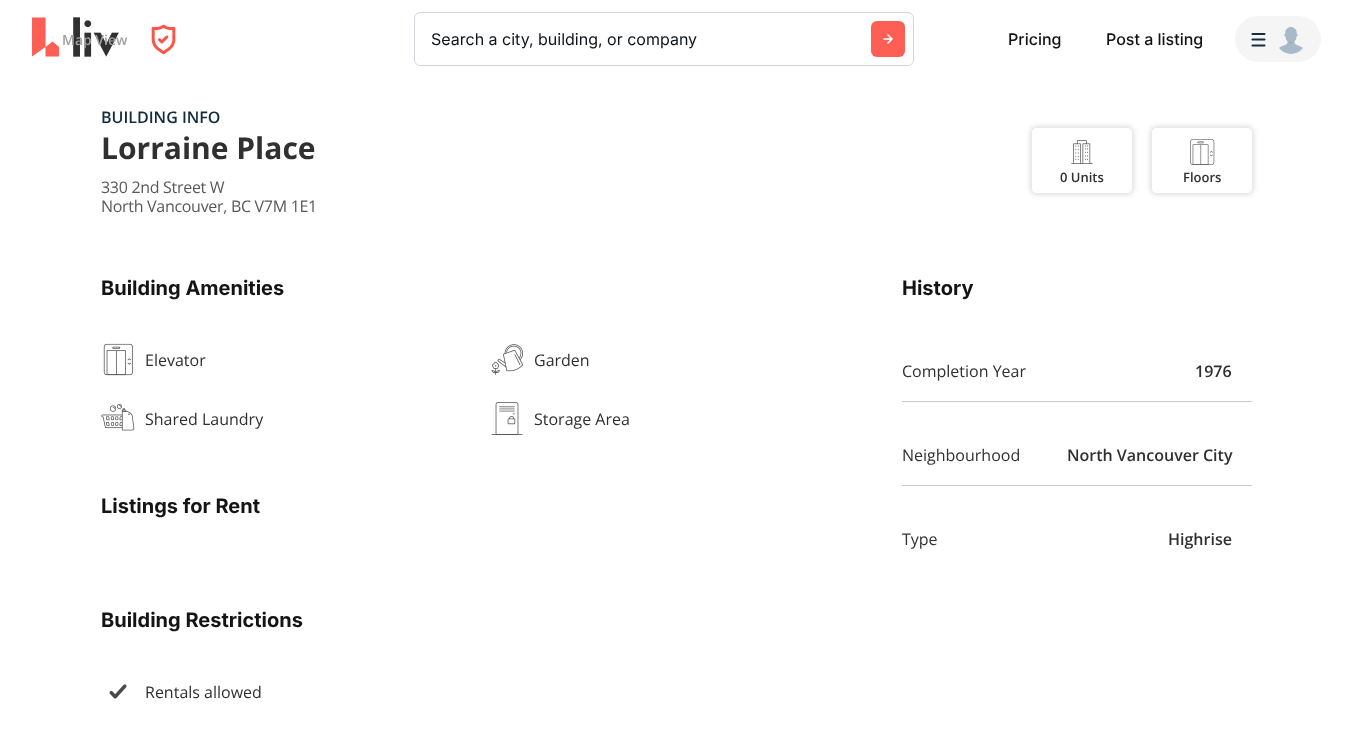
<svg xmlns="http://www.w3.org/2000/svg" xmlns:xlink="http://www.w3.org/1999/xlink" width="1353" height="745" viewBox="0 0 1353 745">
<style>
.cls-1{font:16px Inter;fill:#0e131b}
.cls-2{font:500 16px Inter;fill:#141414}
.cls-3{font:600 14px Open Sans;fill:#a1a1a1}
.cls-4{font:600 16px Open Sans;fill:#132b3e}
.cls-5{font:bold 30px Open Sans;fill:#303030}
.cls-6{font:16px Open Sans;letter-spacing:-0.3px;fill:#595959}
.cls-7{font:600 13px Open Sans;fill:#303030}
.cls-8{font:bold 20px Inter;fill:#141414}
.cls-9{font:16px Open Sans;fill:#303030}
.cls-10{font:600 16px Open Sans;fill:#303030}
</style>
<defs>
<clipPath id="clip1"><path d="M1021 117H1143V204H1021ZM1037 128H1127C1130 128 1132 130 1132 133V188C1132 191 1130 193 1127 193H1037C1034 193 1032 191 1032 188V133C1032 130 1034 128 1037 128Z" clip-rule="evenodd"/></clipPath>
<clipPath id="clip2"><path d="M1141 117H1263V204H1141ZM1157 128H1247C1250 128 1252 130 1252 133V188C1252 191 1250 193 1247 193H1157C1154 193 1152 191 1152 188V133C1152 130 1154 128 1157 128Z" clip-rule="evenodd"/></clipPath>
</defs>
<rect width="100%" height="100%" fill="#ffffff"/>
<path fill="#fe5f55" fill-rule="evenodd" d="M52.5 41.5L45.5 47V56.5H59V47ZM45.5 56.5V47L32 56.5V17.5H45.5Z"/>
<image xlink:href="image0.png" x="73" y="17" width="46" height="40"/>
<image xlink:href="image1.png" x="151" y="24" width="25" height="31"/>
<rect fill="none" stroke="#d2d7df" x="414.5" y="12.5" width="499" height="53" rx="5.5"/>
<rect fill="#fe5f55" x="871" y="21" width="34" height="36" rx="6"/>
<image xlink:href="image2.png" x="883" y="34" width="10" height="10"/>
<rect fill="#f5f5f5" x="1235" y="16" width="86" height="46" rx="23"/>
<path fill="none" stroke="#142d41" stroke-width="2.1" stroke-linecap="round" d="M1252.5 34H1264.5M1252.5 39.5H1264.5M1252.5 45.5H1264.5"/>
<image xlink:href="image3.png" x="1279" y="27" width="24" height="27"/>
<g clip-path="url(#clip1)">
<rect fill="#000000" fill-opacity="0.12" filter="blur(2.5px)" x="1030" y="126" width="104" height="69" rx="7"/>
</g>
<image xlink:href="image4.png" x="1071" y="140" width="22" height="24"/>
<g clip-path="url(#clip2)">
<rect fill="#000000" fill-opacity="0.12" filter="blur(2.5px)" x="1150" y="126" width="104" height="69" rx="7"/>
</g>
<image xlink:href="image5.png" x="1190" y="139" width="25" height="26"/>
<image xlink:href="image6.png" x="103" y="343" width="30" height="33"/>
<image xlink:href="image7.png" x="491" y="344" width="32" height="31"/>
<image xlink:href="image8.png" x="101" y="404" width="34" height="27"/>
<image xlink:href="image9.png" x="491" y="402" width="32" height="33"/>
<image xlink:href="image10.png" x="109" y="684" width="18" height="15"/>
<rect fill="#cbcbcb" x="902" y="401" width="350" height="1"/>
<rect fill="#cbcbcb" x="902" y="485" width="350" height="1"/>
<text class="cls-1" x="431" y="45">Search a city, building, or company</text>
<text class="cls-2" x="1008" y="45">Pricing</text>
<text class="cls-2" x="1106" y="45">Post a listing</text>
<text class="cls-3" x="62" y="45">Map View</text>
<text class="cls-4" x="101" y="123">BUILDING INFO</text>
<text class="cls-5" x="101" y="159">Lorraine Place</text>
<text class="cls-6"><tspan x="101" y="193">330 2nd Street W</tspan><tspan x="101" y="212">North Vancouver, BC V7M 1E1</tspan></text>
<text class="cls-7" x="1060" y="182">0 Units</text>
<text class="cls-7" x="1183" y="182">Floors</text>
<text class="cls-8" x="101" y="295">Building Amenities</text>
<text class="cls-9" x="145" y="366">Elevator</text>
<text class="cls-9" x="534" y="366">Garden</text>
<text class="cls-9" x="145" y="425">Shared Laundry</text>
<text class="cls-9" x="534" y="425">Storage Area</text>
<text class="cls-8" x="101" y="513">Listings for Rent</text>
<text class="cls-8" x="101" y="627">Building Restrictions</text>
<text class="cls-9" x="145" y="698">Rentals allowed</text>
<text class="cls-8" x="902" y="295">History</text>
<text class="cls-9" x="902" y="377">Completion Year</text>
<text class="cls-10" x="1195" y="377">1976</text>
<text class="cls-9" x="902" y="461">Neighbourhood</text>
<text class="cls-10" x="1067" y="461">North Vancouver City</text>
<text class="cls-9" x="902" y="545">Type</text>
<text class="cls-10" x="1168" y="545">Highrise</text>
</svg>
